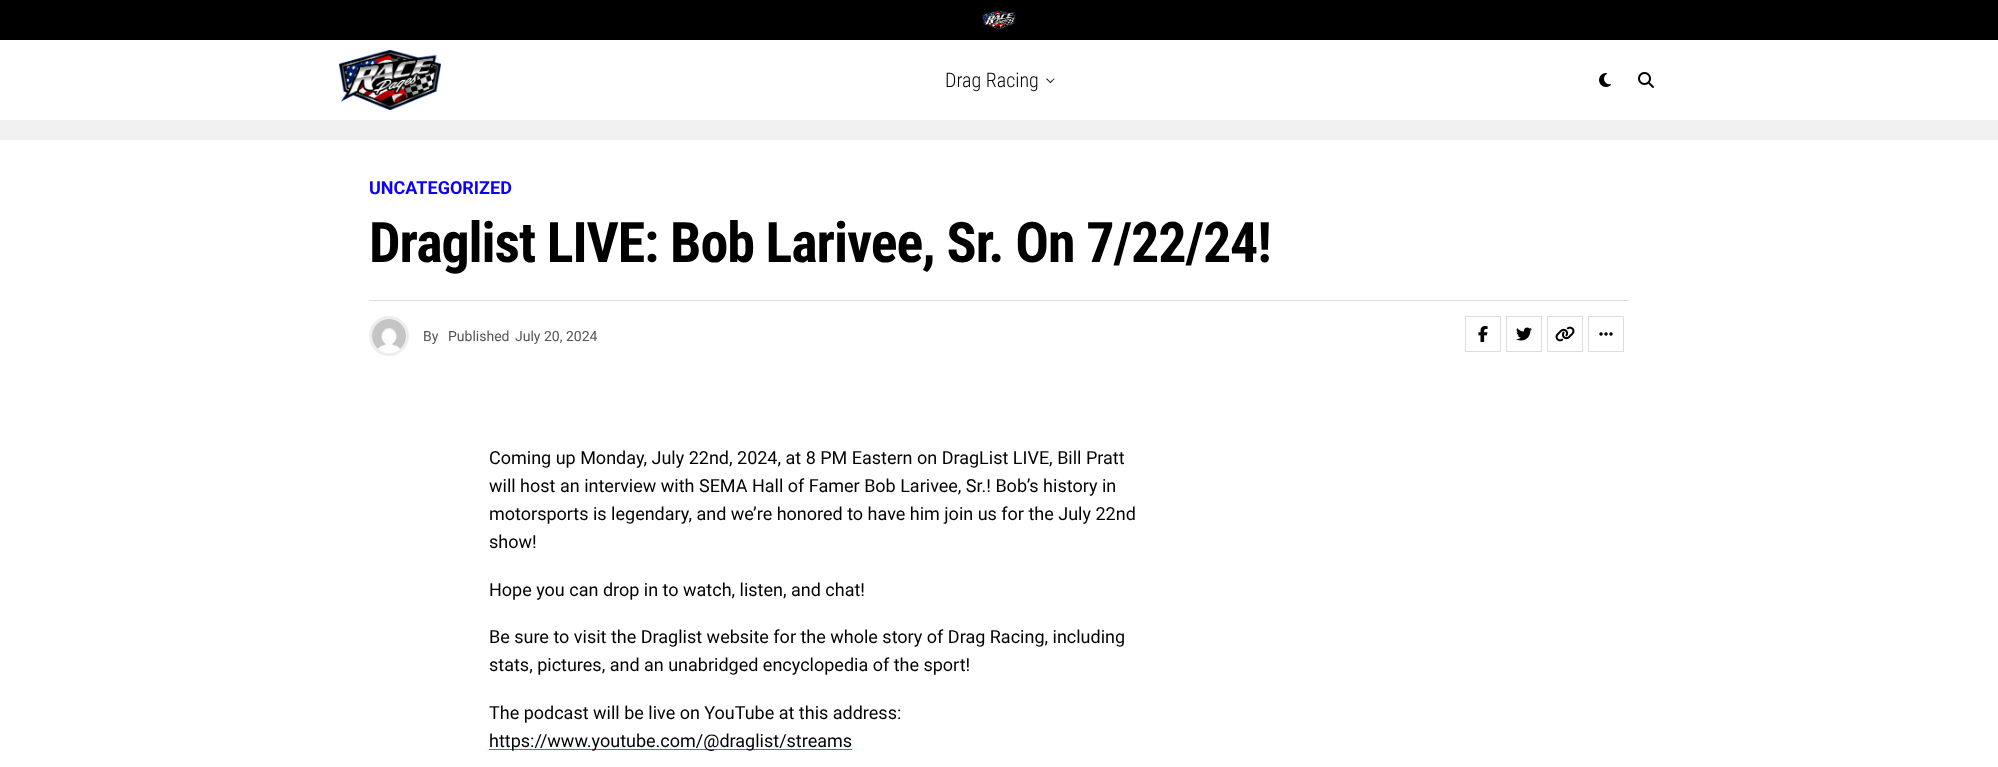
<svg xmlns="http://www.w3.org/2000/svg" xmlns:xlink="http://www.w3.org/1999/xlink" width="1998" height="767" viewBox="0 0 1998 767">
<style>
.cls-1{font:300 20px Roboto Condensed;fill:#000000}
.cls-2{font:bold 18px Roboto;fill:#0c00fc}
.cls-3{font:bold 56px Roboto Condensed;letter-spacing:-1.1px;fill:#000000}
.cls-4{font:14px Roboto;fill:#555555}
.cls-5{font:18px Roboto;fill:#000000}
</style>
<rect width="100%" height="100%" fill="#f0f0f0"/>
<rect fill="#000000" x="0" y="0" width="1998" height="40"/>
<image xlink:href="image0.png" x="982" y="10" width="34" height="20"/>
<rect fill="#ffffff" x="0" y="40" width="1998" height="80"/>
<image xlink:href="image1.png" x="339" y="50" width="102" height="60"/>
<path fill="#000000" d="M1054 78.5L1054.5 79L1050.5 83L1049.5 82.5Z"/>
<path fill="#000000" d="M1047 78.5L1051 82.5L1050.5 83L1046 79Z"/>
<image xlink:href="image2.png" x="1599" y="73" width="12" height="14"/>
<image xlink:href="image3.png" x="1638" y="72" width="16" height="16"/>
<rect fill="#ffffff" x="0" y="140" width="1998" height="627"/>
<rect fill="#dddddd" x="369" y="300" width="1260" height="1"/>
<circle fill="none" stroke="#eeeeee" stroke-width="3" cx="389" cy="336" r="18.5"/>
<image xlink:href="image4.png" x="372" y="319" width="34" height="34"/>
<rect fill="none" stroke="#dddddd" x="1465.5" y="316.5" width="35" height="35"/>
<image xlink:href="image5.png" x="1478" y="326" width="10" height="16"/>
<rect fill="none" stroke="#dddddd" x="1506.5" y="316.5" width="35" height="35"/>
<image xlink:href="image6.png" x="1516" y="327" width="16" height="14"/>
<rect fill="none" stroke="#dddddd" x="1547.5" y="316.5" width="35" height="35"/>
<image xlink:href="image7.png" x="1555" y="326" width="20" height="16"/>
<rect fill="none" stroke="#dddddd" x="1588.5" y="316.5" width="35" height="35"/>
<image xlink:href="image8.png" x="1599" y="332" width="14" height="4"/>
<rect fill="#ec2b8c" x="489" y="749" width="363" height="1"/>
<text class="cls-1" x="945" y="87">Drag Racing</text>
<text class="cls-2" x="369" y="194">UNCATEGORIZED</text>
<text class="cls-3" x="369" y="262">Draglist LIVE: Bob Larivee, Sr. On 7/22/24!</text>
<text class="cls-4" x="423" y="341">By</text>
<text class="cls-4" x="448" y="341">Published</text>
<text class="cls-4" x="515" y="341">July 20, 2024</text>
<text class="cls-5"><tspan x="489" y="464">Coming up Monday, July 22nd, 2024, at 8 PM Eastern on DragList LIVE, Bill Pratt</tspan><tspan x="489" y="492">will host an interview with SEMA Hall of Famer Bob Larivee, Sr.! Bob’s history in</tspan><tspan x="489" y="520">motorsports is legendary, and we’re honored to have him join us for the July 22nd</tspan><tspan x="489" y="548">show!</tspan></text>
<text class="cls-5" x="489" y="596">Hope you can drop in to watch, listen, and chat!</text>
<text class="cls-5"><tspan x="489" y="643">Be sure to visit the Draglist website for the whole story of Drag Racing, including</tspan><tspan x="489" y="671">stats, pictures, and an unabridged encyclopedia of the sport!</tspan></text>
<text class="cls-5"><tspan x="489" y="719">The podcast will be live on YouTube at this address:</tspan><tspan x="489" y="747">https://www.youtube.com/@draglist/streams</tspan></text>
</svg>
